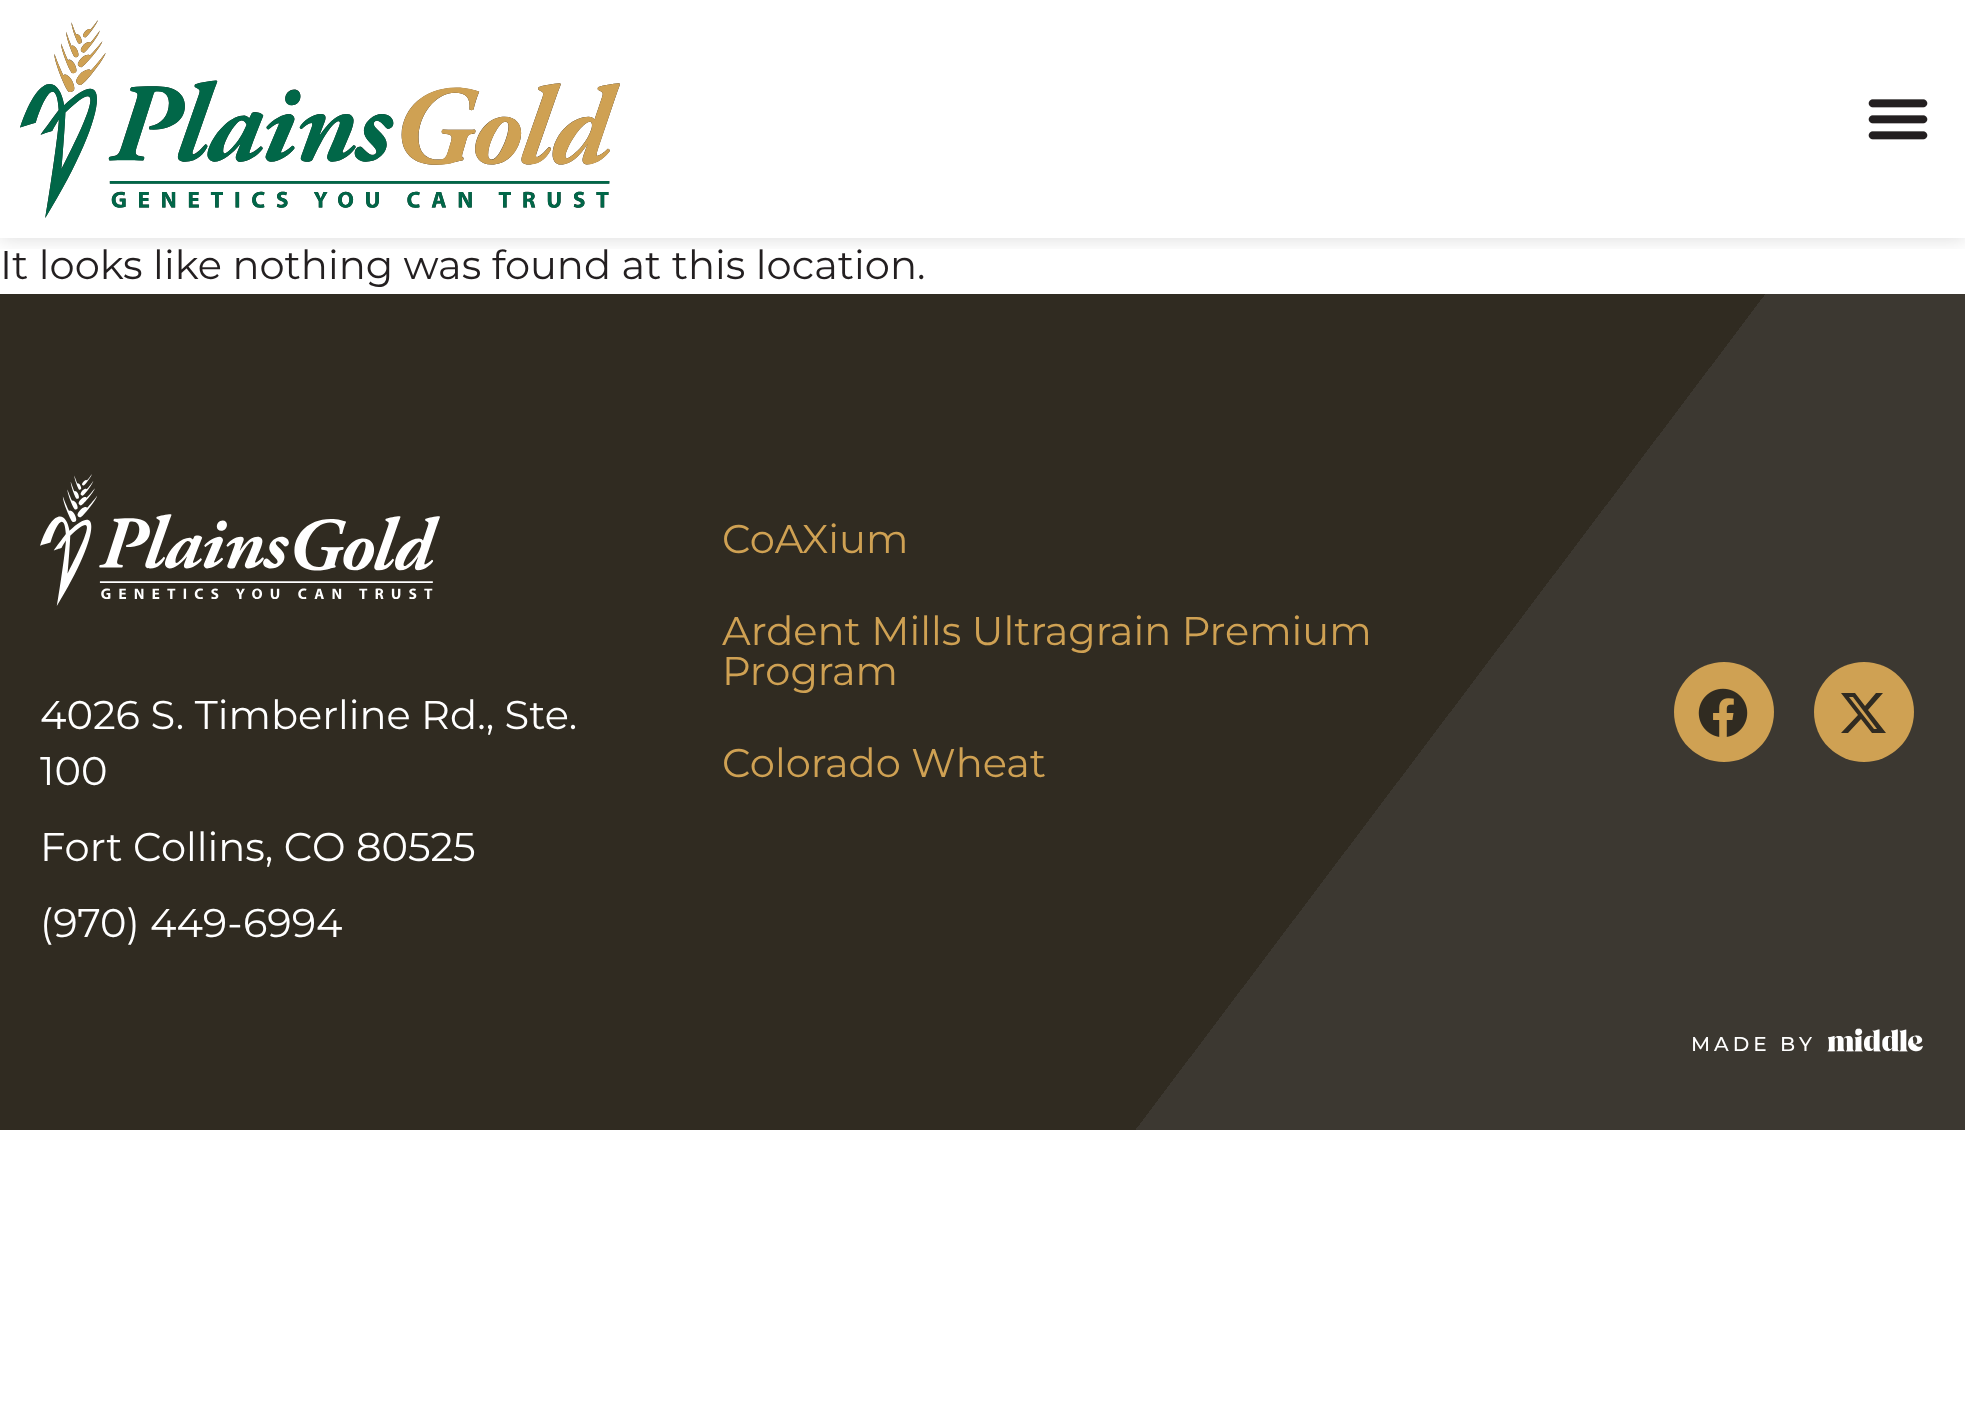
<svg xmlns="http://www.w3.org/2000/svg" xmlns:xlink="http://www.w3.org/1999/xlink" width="1965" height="1428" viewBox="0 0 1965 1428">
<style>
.cls-1{font:40px Montserrat;fill:#231f20}
.cls-2{font:40px Montserrat;fill:#ffffff}
.cls-3{font:40px Montserrat;fill:#cfa153}
.cls-4{font:500 20px Montserrat;letter-spacing:4px;fill:#ffffff}
</style>
<defs>
<clipPath id="clip1"><rect x="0" y="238" width="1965" height="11"/></clipPath>
<linearGradient id="g1" gradientUnits="userSpaceOnUse" x1="155" y1="88" x2="1811" y2="1336"><stop offset="0.68" stop-color="#302b21"/><stop offset="0.68" stop-color="#3c3831"/></linearGradient>
</defs>
<rect width="100%" height="100%" fill="#ffffff"/>
<g clip-path="url(#clip1)">
<rect fill="#000000" fill-opacity="0.15" filter="blur(10px)" x="0" y="0" width="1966" height="238"/>
</g>
<image xlink:href="image0.png" x="20" y="20" width="600" height="198"/>
<image xlink:href="image1.png" x="1868" y="99" width="60" height="41"/>
<rect fill="url(#g1)" x="0" y="294" width="1965" height="836"/>
<image xlink:href="image2.png" x="40" y="474" width="400" height="132"/>
<circle fill="#cfa153" cx="1724" cy="712" r="50"/>
<image xlink:href="image3.png" x="1698" y="688" width="50" height="49"/>
<circle fill="#cfa153" cx="1864" cy="712" r="50"/>
<path fill="#302b21" d="M1876 693H1883L1868 710L1886 733H1872L1861 719L1848 733H1841L1858 715L1841 693H1855L1865 706ZM1874 729H1877L1853 697H1849Z"/>
<image xlink:href="image4.png" x="1827" y="1028" width="96" height="24"/>
<text class="cls-1" x="0" y="279">It looks like nothing was found at this location.</text>
<text class="cls-2"><tspan x="40" y="729">4026 S. Timberline Rd., Ste.</tspan><tspan x="40" y="785">100</tspan><tspan x="40" y="861">Fort Collins, CO 80525</tspan><tspan x="40" y="937">(970) 449-6994</tspan></text>
<text class="cls-3" x="722" y="553">CoAXium</text>
<text class="cls-3"><tspan x="722" y="645">Ardent Mills Ultragrain Premium</tspan><tspan x="722" y="685">Program</tspan></text>
<text class="cls-3" x="722" y="777">Colorado Wheat</text>
<text class="cls-4" x="1691" y="1051">MADE BY</text>
</svg>
